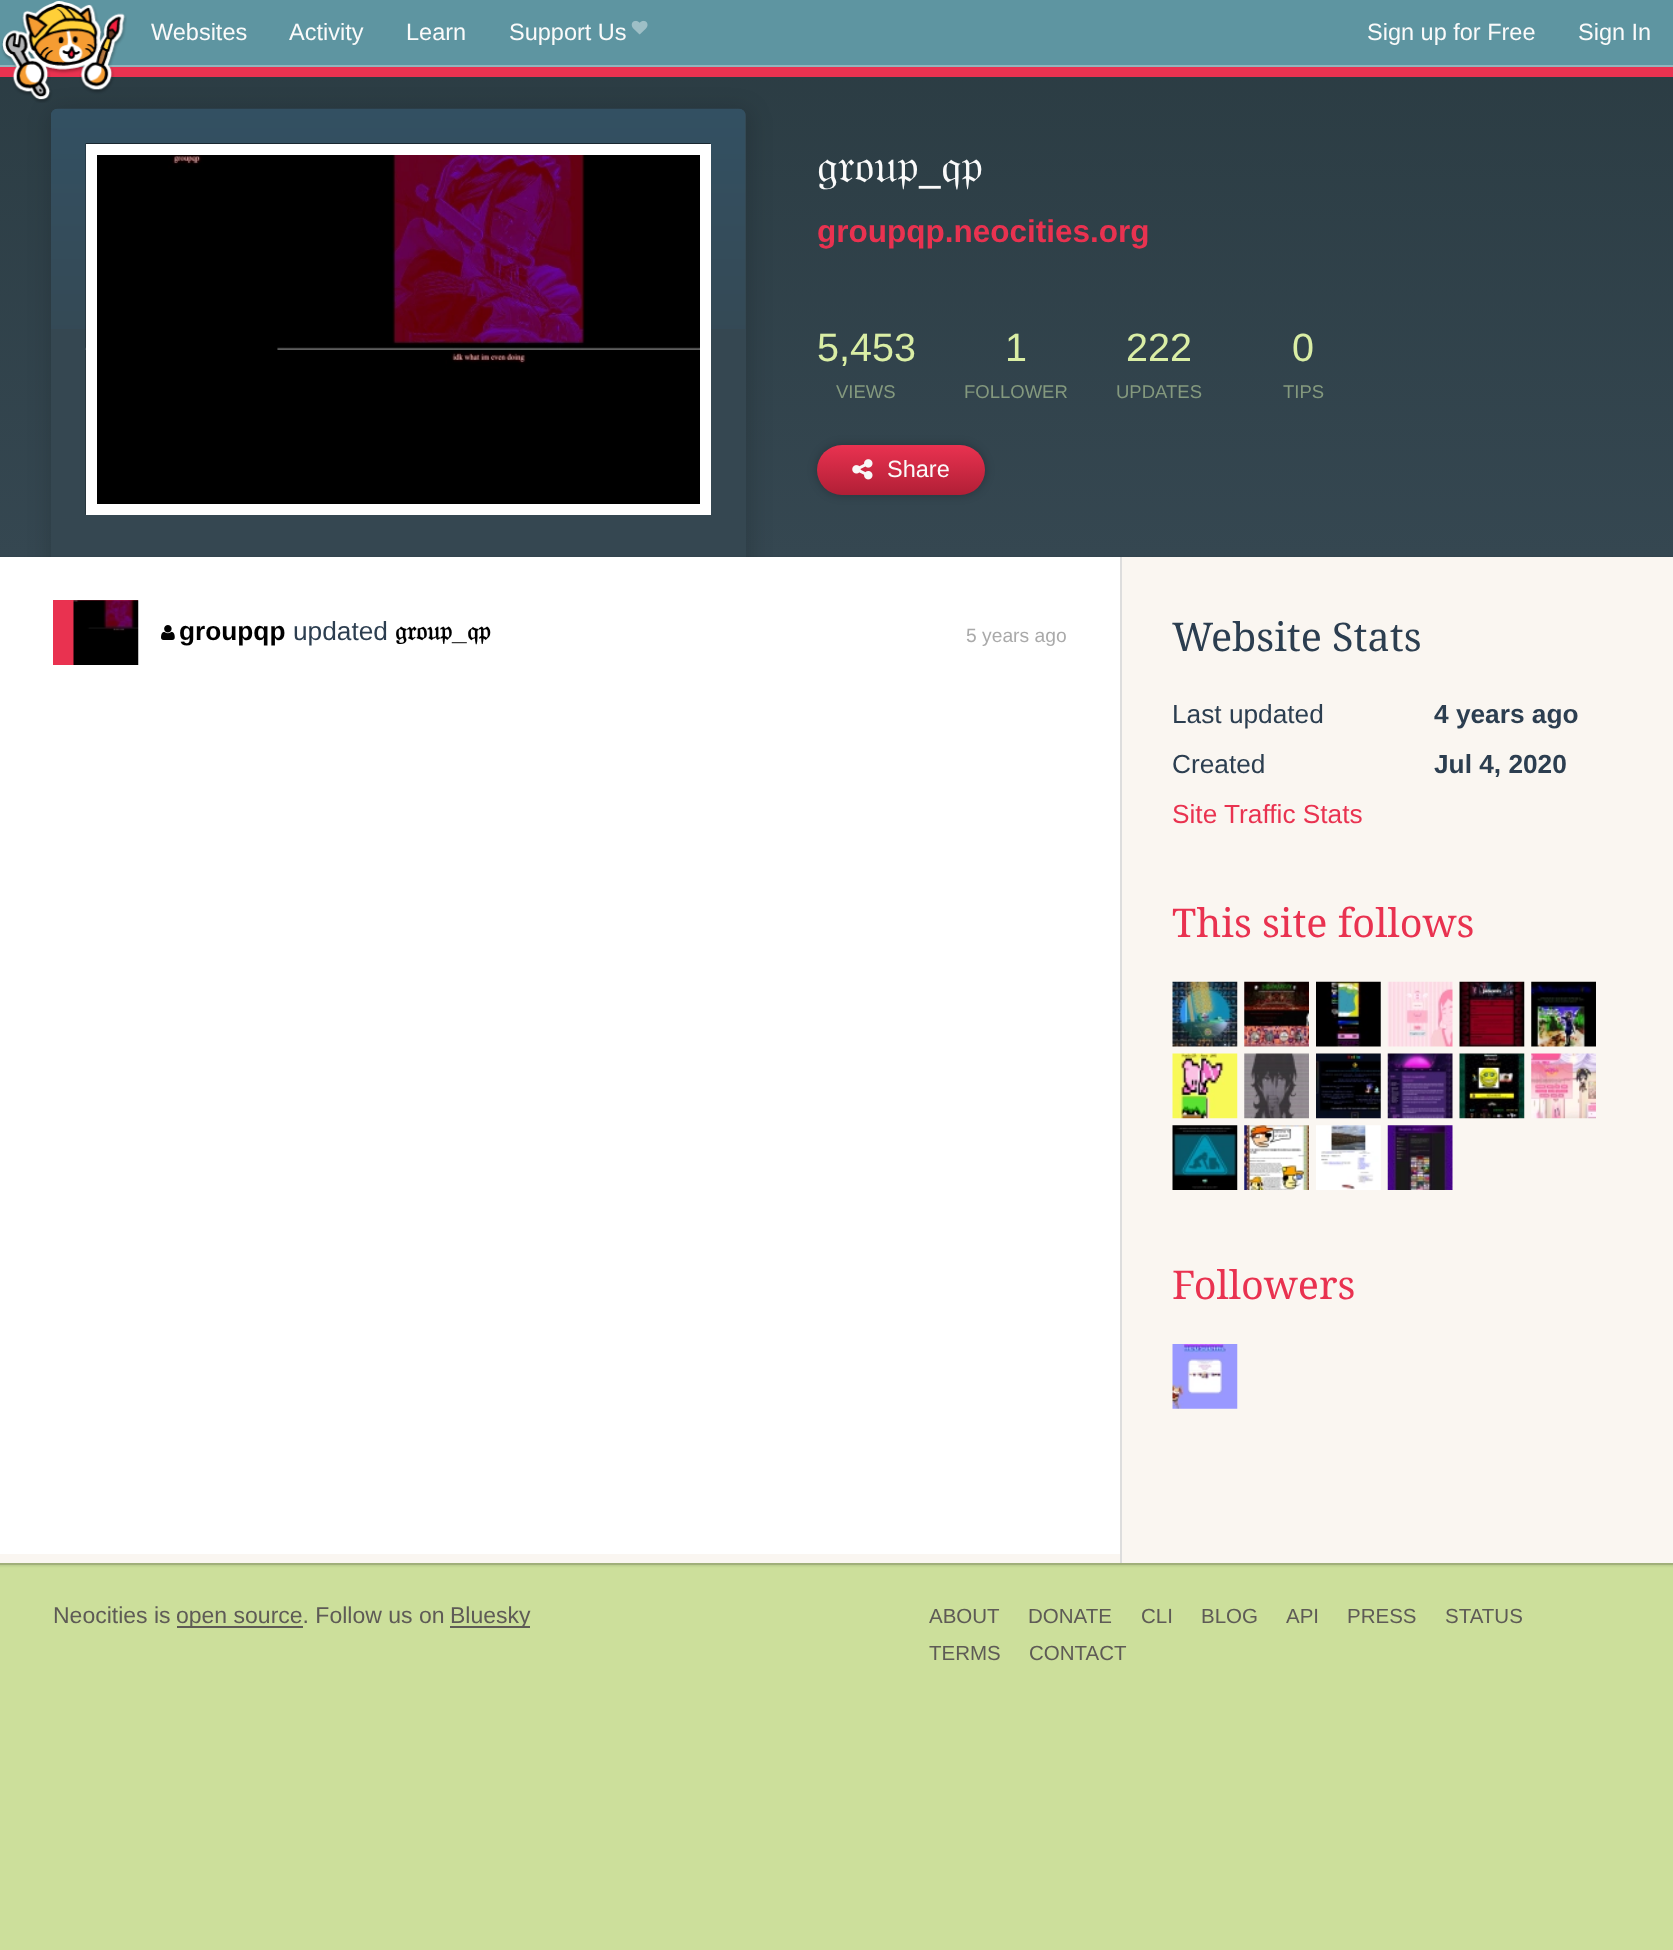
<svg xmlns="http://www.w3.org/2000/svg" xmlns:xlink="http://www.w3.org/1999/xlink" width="1673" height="1950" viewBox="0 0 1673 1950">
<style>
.cls-1{font:23.5px Liberation Sans;fill:#fafafa}
.cls-2{font:47px FreeSerif;fill:#fafafa}
.cls-3{font:47px Droid Serif;fill:#fafafa}
.cls-4{font:bold 31.5px Liberation Sans;fill:#e93250}
.cls-5{font:39.5px Liberation Sans;fill:#daeea5}
.cls-6{font:18.5px Liberation Sans;fill:#84997e}
.cls-7{font:bold 26.25px Liberation Sans;fill:#000000}
.cls-8{font:26.25px Liberation Sans;fill:#2c3e50}
.cls-9{font:bold 26.25px FreeSerif;fill:#000000}
.cls-10{font:19.25px Liberation Sans;fill:#aaaaaa}
.cls-11{font:39.5px Droid Serif;fill:#2c3e50}
.cls-12{font:bold 26.25px Liberation Sans;fill:#2c3e50}
.cls-13{font:26.25px Liberation Sans;fill:#e93250}
.cls-14{font:39.5px Droid Serif;fill:#e93250}
.cls-15{font:23px Liberation Sans;fill:#5e5b56}
.cls-16{font:20.5px Liberation Sans;fill:#5e5b56}
</style>
<defs>
<linearGradient id="g1" gradientUnits="userSpaceOnUse" x1="837" y1="38" x2="837" y2="557"><stop offset="0" stop-color="#2b3c43"/><stop offset="1" stop-color="#354751"/></linearGradient>
<clipPath id="clip1"><rect x="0" y="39" width="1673" height="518"/></clipPath>
<linearGradient id="g2" gradientUnits="userSpaceOnUse" x1="901" y1="445" x2="901" y2="495"><stop offset="0" stop-color="#e93250"/><stop offset="1" stop-color="#b11f36"/></linearGradient>
</defs>
<rect width="100%" height="100%" fill="#ccdf9b"/>
<rect fill="url(#g1)" x="0" y="77" width="1673" height="480"/>
<rect fill="#b3c388" x="0" y="1563" width="1673" height="2"/>
<g clip-path="url(#clip1)">
<rect fill="#000000" fill-opacity="0.15" filter="blur(10.5px)" x="49" y="109" width="702" height="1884" rx="11"/>
</g>
<rect fill="#e93250" x="0" y="67" width="1673" height="10"/>
<rect fill="#5e95a1" x="0" y="0" width="1673" height="65"/>
<rect fill="#92b4bd" x="0" y="65" width="1673" height="2"/>
<image xlink:href="image0.png" x="1" y="1" width="126" height="102"/>
<image xlink:href="image1.png" x="631" y="20" width="17" height="15"/>
<path fill="#354751" d="M58 109H739C743 109 746 112 746 116V557H51V116C51 112 54 109 58 109Z"/>
<image xlink:href="image2.png" x="51" y="108" width="695" height="221"/>
<image xlink:href="image3.png" x="85" y="143" width="626" height="372"/>
<rect fill="none" stroke="#ffffff" stroke-width="11" x="91.5" y="149.5" width="614" height="360"/>
<rect fill="#000000" fill-opacity="0.25" filter="blur(5px)" x="817" y="445" width="168" height="50" rx="25"/>
<rect fill="url(#g2)" x="817" y="445" width="168" height="50" rx="25"/>
<image xlink:href="image4.png" x="852" y="459" width="21" height="21"/>
<rect fill="#000000" fill-opacity="0.1" filter="blur(1px)" x="-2" y="557" width="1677" height="1009"/>
<rect fill="#faf6f1" x="0" y="557" width="1673" height="1006"/>
<rect fill="#dddddd" x="1120" y="557" width="2" height="1006"/>
<rect fill="#ffffff" x="0" y="557" width="1120" height="997"/>
<rect fill="#e93250" x="53" y="600" width="85" height="65"/>
<image xlink:href="image5.png" x="73" y="600" width="66" height="65"/>
<image xlink:href="image6.png" x="161" y="625" width="14" height="15"/>
<image xlink:href="image7.png" x="1172" y="981" width="66" height="66"/>
<image xlink:href="image8.png" x="1244" y="981" width="65" height="66"/>
<image xlink:href="image9.png" x="1316" y="981" width="65" height="66"/>
<image xlink:href="image10.png" x="1387" y="981" width="66" height="66"/>
<image xlink:href="image11.png" x="1459" y="981" width="66" height="66"/>
<image xlink:href="image12.png" x="1531" y="981" width="65" height="66"/>
<image xlink:href="image13.png" x="1172" y="1053" width="66" height="66"/>
<image xlink:href="image14.png" x="1244" y="1053" width="65" height="66"/>
<image xlink:href="image15.png" x="1316" y="1053" width="65" height="66"/>
<image xlink:href="image16.png" x="1387" y="1053" width="66" height="66"/>
<image xlink:href="image17.png" x="1459" y="1053" width="66" height="66"/>
<image xlink:href="image18.png" x="1531" y="1053" width="65" height="66"/>
<image xlink:href="image19.png" x="1172" y="1125" width="66" height="65"/>
<image xlink:href="image20.png" x="1244" y="1125" width="65" height="65"/>
<image xlink:href="image21.png" x="1316" y="1125" width="65" height="65"/>
<image xlink:href="image22.png" x="1387" y="1125" width="66" height="65"/>
<image xlink:href="image23.png" x="1172" y="1344" width="66" height="65"/>
<rect fill="#5e5b56" x="177" y="1626" width="126" height="2"/>
<rect fill="#5e5b56" x="450" y="1626" width="80" height="2"/>
<text class="cls-1" x="151" y="40">Websites</text>
<text class="cls-1" x="289" y="40">Activity</text>
<text class="cls-1" x="406" y="40">Learn</text>
<text class="cls-1" x="509" y="40">Support Us</text>
<text class="cls-1" x="1367" y="40">Sign up for Free</text>
<text class="cls-1" x="1578" y="40">Sign In</text>
<text class="cls-2" x="817" y="182">𝔤𝔯𝔬𝔲𝔭</text>
<text class="cls-3" x="919" y="182">_</text>
<text class="cls-2" x="941" y="182">𝔮𝔭</text>
<text class="cls-4" x="817" y="242">groupqp.neocities.org</text>
<text class="cls-5" x="817" y="361">5,453</text>
<text class="cls-6" x="836" y="398">VIEWS</text>
<text class="cls-5" x="1005" y="361">1</text>
<text class="cls-6" x="964" y="398">FOLLOWER</text>
<text class="cls-5" x="1126" y="361">222</text>
<text class="cls-6" x="1116" y="398">UPDATES</text>
<text class="cls-5" x="1292" y="361">0</text>
<text class="cls-6" x="1283" y="398">TIPS</text>
<text class="cls-1" x="887" y="477">Share</text>
<text class="cls-7" x="179" y="640">groupqp</text>
<text class="cls-8" x="293" y="640">updated</text>
<text class="cls-9" x="395" y="640">𝔤𝔯𝔬𝔲𝔭</text>
<text class="cls-7" x="452" y="640">_</text>
<text class="cls-9" x="467" y="640">𝔮𝔭</text>
<text class="cls-10" x="966" y="642">5 years ago</text>
<text class="cls-11" x="1172" y="651">Website Stats</text>
<text class="cls-8" x="1172" y="723">Last updated</text>
<text class="cls-12" x="1434" y="723">4 years ago</text>
<text class="cls-8" x="1172" y="773">Created</text>
<text class="cls-12" x="1434" y="773">Jul 4, 2020</text>
<text class="cls-13" x="1172" y="823">Site Traffic Stats</text>
<text class="cls-14" x="1172" y="937">This site follows</text>
<text class="cls-14" x="1172" y="1299">Followers</text>
<text class="cls-15" x="53" y="1623">Neocities is</text>
<text class="cls-15" x="176" y="1623">open source. Follow us on</text>
<text class="cls-15" x="450" y="1623">Bluesky</text>
<text class="cls-16" x="929" y="1623">ABOUT</text>
<text class="cls-16" x="1028" y="1623">DONATE</text>
<text class="cls-16" x="1141" y="1623">CLI</text>
<text class="cls-16" x="1201" y="1623">BLOG</text>
<text class="cls-16" x="1286" y="1623">API</text>
<text class="cls-16" x="1347" y="1623">PRESS</text>
<text class="cls-16" x="1445" y="1623">STATUS</text>
<text class="cls-16" x="929" y="1660">TERMS</text>
<text class="cls-16" x="1029" y="1660">CONTACT</text>
</svg>
